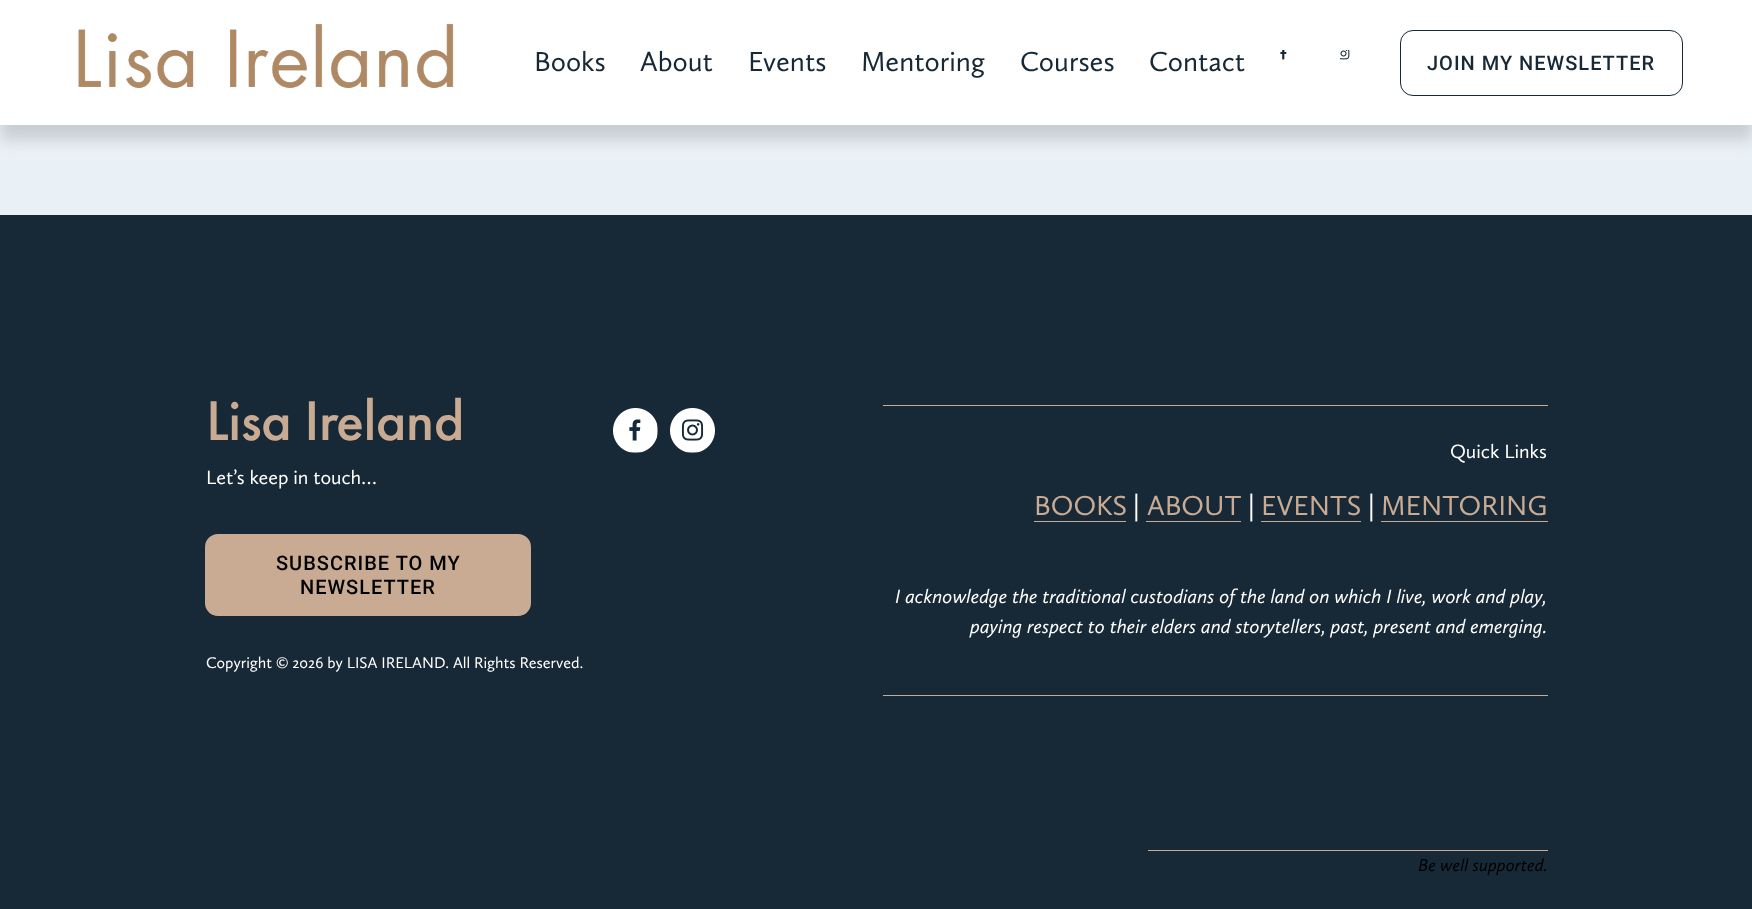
<svg xmlns="http://www.w3.org/2000/svg" xmlns:xlink="http://www.w3.org/1999/xlink" width="1752" height="909" viewBox="0 0 1752 909">
<style>
.cls-1{font:28.5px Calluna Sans;fill:#172836}
.cls-2{font:500 20px Roboto;letter-spacing:1px;fill:#172836}
.cls-3{font:500 58px Futura PT;letter-spacing:-0.5px;fill:#c8ab92}
.cls-4{font:20px Calluna Sans;fill:#ffffff}
.cls-5{font:28.5px Calluna Sans;fill:#c8ab92}
.cls-6{font:28.5px Calluna Sans;fill:#ffffff}
.cls-7{font:500 20px Roboto;letter-spacing:1px;fill:#000000}
.cls-8{font:italic 20px Calluna Sans;fill:#ffffff}
.cls-9{font:16px Calluna Sans;fill:#ffffff}
.cls-10{font:italic 18px Calluna Sans;fill:#000000}
</style>
<defs>
<clipPath id="clip1"><rect x="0" y="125" width="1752" height="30"/></clipPath>
</defs>
<rect width="100%" height="100%" fill="#eaf1f6"/>
<rect fill="#ffffff" x="0" y="0" width="1752" height="125"/>
<g clip-path="url(#clip1)">
<rect fill="#c7cdd1" filter="blur(7.5px)" x="0" y="15" width="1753" height="125"/>
</g>
<image xlink:href="image0.png" x="78" y="23" width="376" height="66"/>
<image xlink:href="image1.png" x="1280" y="50" width="7" height="10"/>
<image xlink:href="image2.png" x="1340" y="50" width="10" height="10"/>
<rect fill="none" stroke="#172836" x="1400.5" y="30.5" width="282" height="65" rx="12.5"/>
<rect fill="#172836" x="0" y="215" width="1752" height="694"/>
<rect fill="#c8ab92" x="883" y="405" width="665" height="1"/>
<image xlink:href="image3.png" x="613" y="408" width="45" height="45"/>
<image xlink:href="image4.png" x="670" y="408" width="45" height="45"/>
<rect fill="#c8ab92" x="1034" y="521" width="92" height="1"/>
<rect fill="#c8ab92" x="1146" y="521" width="95" height="1"/>
<rect fill="#c8ab92" x="1261" y="521" width="100" height="1"/>
<rect fill="#c8ab92" x="1381" y="521" width="167" height="1"/>
<rect fill="#c8ab92" x="205" y="534" width="326" height="82" rx="13"/>
<rect fill="#c8ab92" x="883" y="695" width="665" height="1"/>
<rect fill="#c8ab92" x="1148" y="850" width="400" height="1"/>
<text class="cls-1" x="534" y="71">Books</text>
<text class="cls-1" x="640" y="71">About</text>
<text class="cls-1" x="748" y="71">Events</text>
<text class="cls-1" x="861" y="71">Mentoring</text>
<text class="cls-1" x="1020" y="71">Courses</text>
<text class="cls-1" x="1149" y="71">Contact</text>
<text class="cls-2" x="1427" y="70">JOIN MY NEWSLETTER</text>
<text class="cls-3" x="206" y="440">Lisa Ireland</text>
<text class="cls-4" x="1450" y="458">Quick Links</text>
<text class="cls-4" x="206" y="484">Let’s keep in touch…</text>
<text class="cls-5" x="1034" y="515">BOOKS</text>
<text class="cls-6" x="1133" y="515">|</text>
<text class="cls-5" x="1147" y="515">ABOUT</text>
<text class="cls-6" x="1248" y="515">|</text>
<text class="cls-5" x="1261" y="515">EVENTS</text>
<text class="cls-6" x="1368" y="515">|</text>
<text class="cls-5" x="1381" y="515">MENTORING</text>
<text class="cls-7" x="276" y="570">SUBSCRIBE TO MY</text>
<text class="cls-7" x="300" y="594">NEWSLETTER</text>
<text class="cls-8" x="895" y="603">I acknowledge the traditional custodians of the land on which I live, work and play,</text>
<text class="cls-8" x="970" y="633">paying respect to their elders and storytellers, past, present and emerging.</text>
<text class="cls-9" x="206" y="668">Copyright © 2026 by LISA IRELAND. All Rights Reserved.</text>
<text class="cls-10" x="1418" y="871">Be well supported.</text>
</svg>
